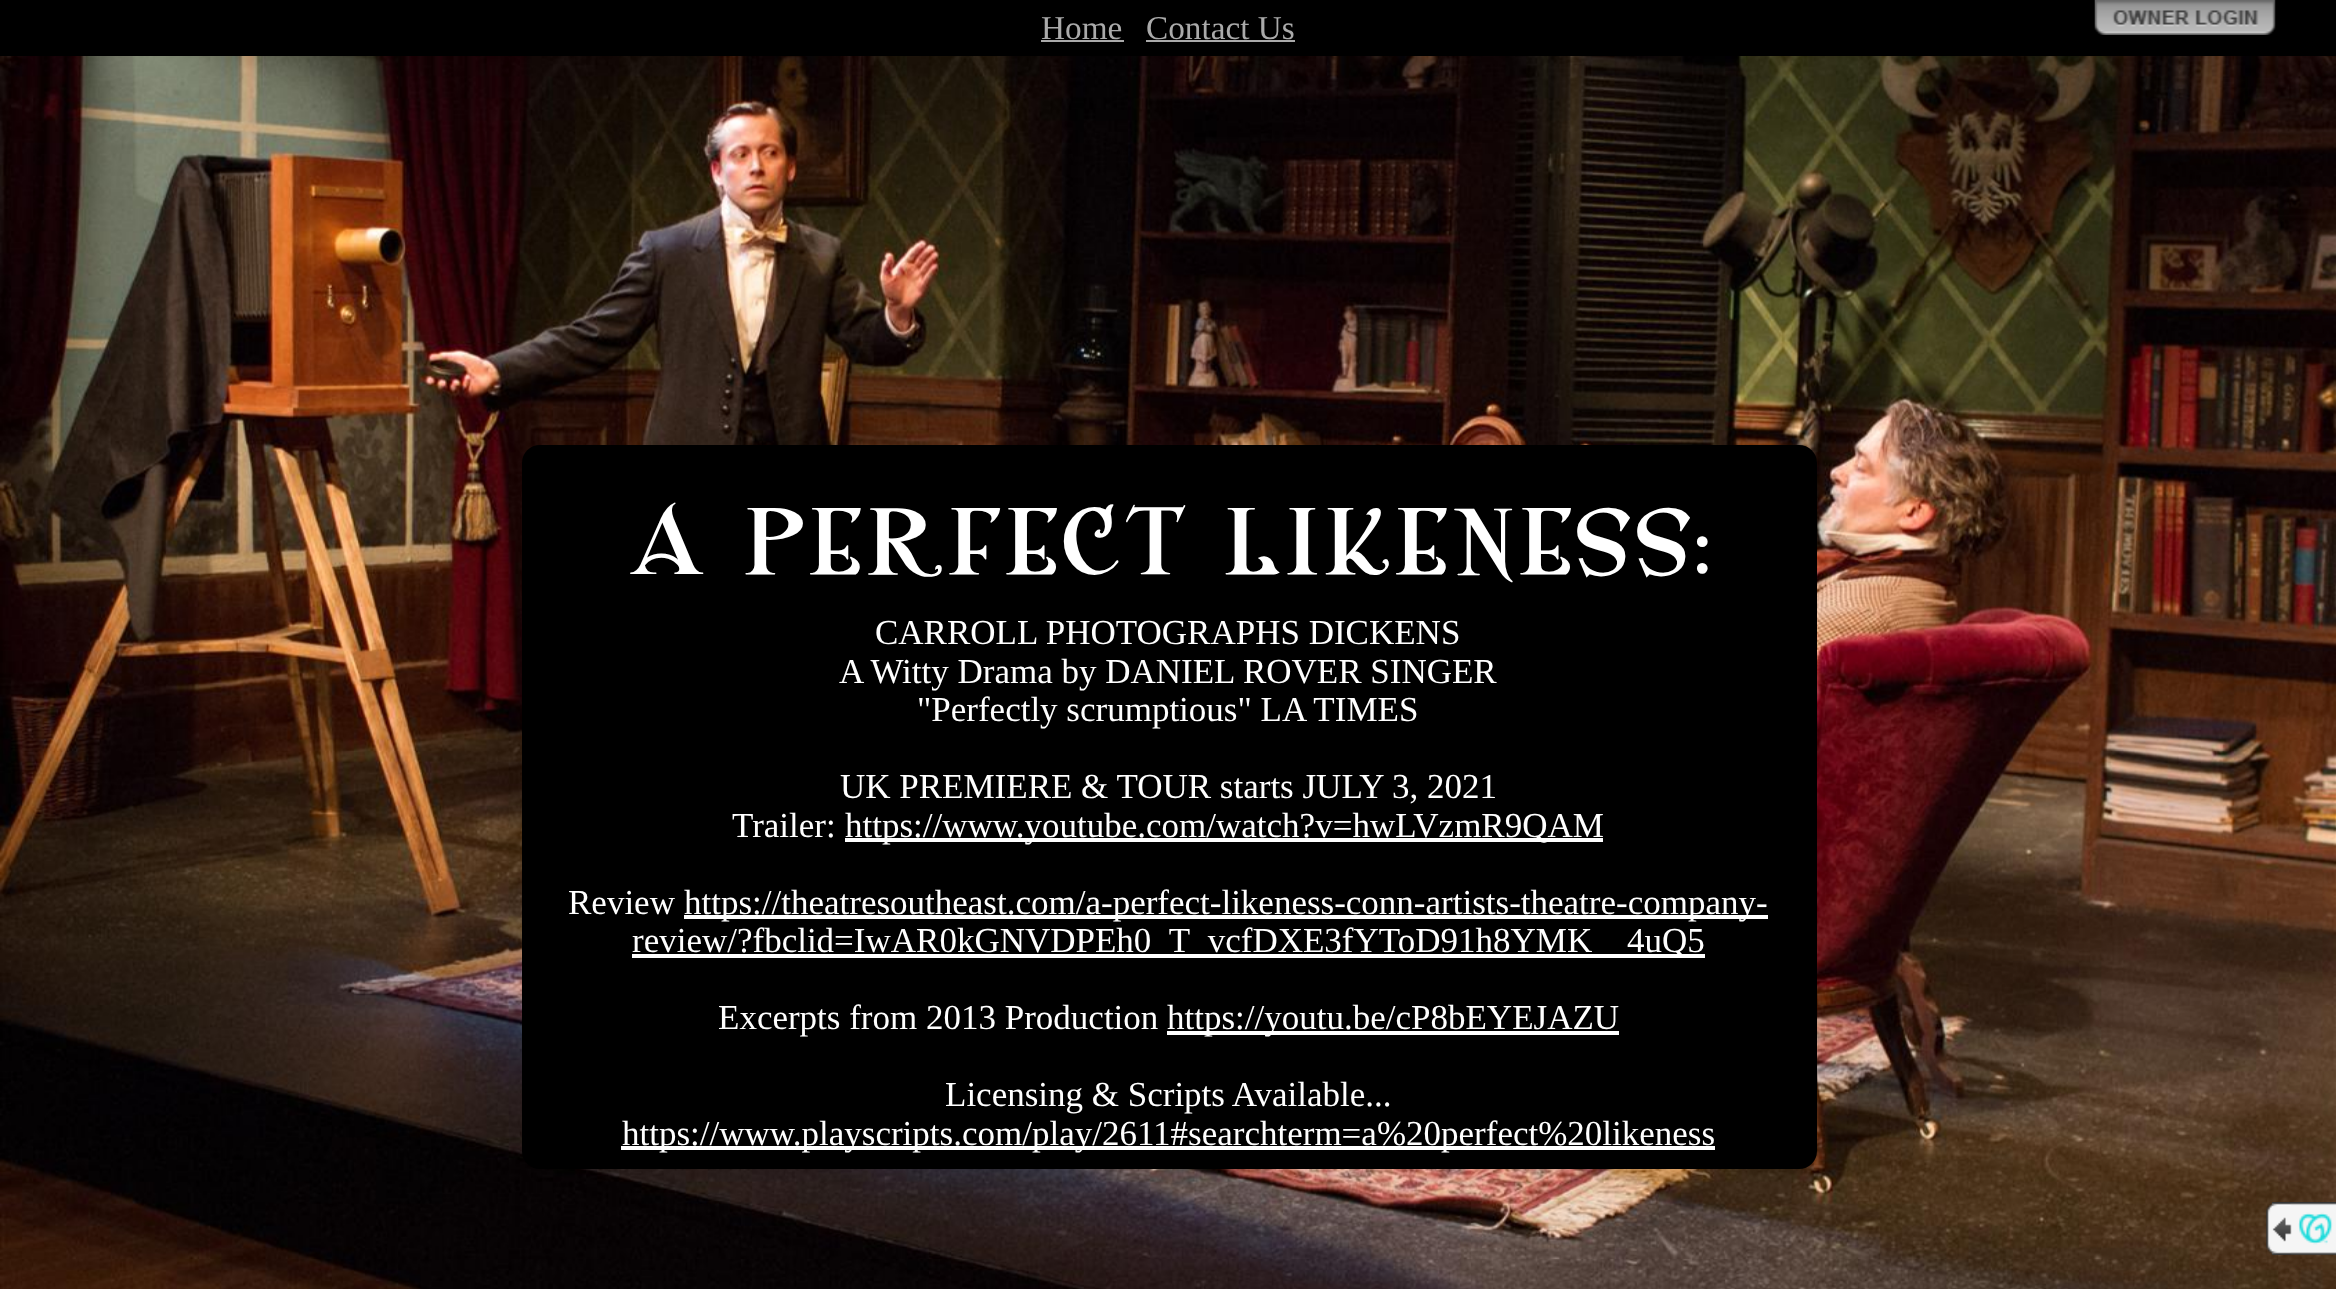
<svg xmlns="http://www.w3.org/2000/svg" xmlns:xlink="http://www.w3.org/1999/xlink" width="2336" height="1289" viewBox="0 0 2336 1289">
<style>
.cls-1{font:33.25px Liberation Serif;fill:#aaaaaa}
.cls-2{font:133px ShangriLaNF;fill:#ffffff}
.cls-3{font:35px Liberation Serif;fill:#ffffff}
</style>
<rect width="100%" height="100%" fill="#ffffff"/>
<rect fill="#000000" x="0" y="0" width="2336" height="56"/>
<rect fill="#aaaaaa" x="1041" y="40" width="83" height="2"/>
<rect fill="#aaaaaa" x="1146" y="40" width="149" height="2"/>
<image xlink:href="image0.png" x="2094" y="0" width="182" height="35"/>
<image xlink:href="image4.png" x="0" y="56" width="2336" height="1233"/>
<rect fill="#000000" x="522" y="445" width="1295" height="724" rx="18"/>
<rect fill="#ffffff" x="845" y="838" width="758" height="4"/>
<rect fill="#ffffff" x="684" y="915" width="1084" height="4"/>
<rect fill="#ffffff" x="632" y="954" width="1073" height="4"/>
<rect fill="#ffffff" x="1167" y="1031" width="452" height="4"/>
<rect fill="#ffffff" x="621" y="1146" width="1094" height="4"/>
<image xlink:href="image1.png" x="2272" y="1202" width="64" height="53"/>
<rect fill="#3d3d3d" fill-opacity="0.62" x="2272" y="1254" width="64" height="1"/>
<image xlink:href="image2.png" x="2266" y="1203" width="26" height="52"/>
<image xlink:href="image3.png" x="2298" y="1212" width="35" height="33"/>
<text class="cls-1" x="1041" y="39">Home</text>
<text class="cls-1" x="1146" y="39">Contact Us</text>
<text class="cls-2" x="625" y="574">A PERFECT LIKENESS:</text>
<text class="cls-3" x="875" y="644">CARROLL PHOTOGRAPHS DICKENS</text>
<text class="cls-3" x="839" y="683">A Witty Drama by DANIEL ROVER SINGER</text>
<text class="cls-3" x="917" y="721">"Perfectly scrumptious" LA TIMES</text>
<text class="cls-3" x="840" y="798">UK PREMIERE &amp; TOUR starts JULY 3, 2021</text>
<text class="cls-3" x="732" y="837">Trailer:</text>
<text class="cls-3" x="845" y="837">https://www.youtube.com/watch?v=hwLVzmR9QAM</text>
<text class="cls-3" x="568" y="914">Review</text>
<text class="cls-3" x="684" y="914">https://theatresoutheast.com/a-perfect-likeness-conn-artists-theatre-company-</text>
<text class="cls-3" x="632" y="952">review/?fbclid=IwAR0kGNVDPEh0_T_vcfDXE3fYToD91h8YMK</text>
<text class="cls-3" x="1627" y="952">4uQ5</text>
<text class="cls-3" x="718" y="1029">Excerpts from 2013 Production</text>
<text class="cls-3" x="1167" y="1029">https://youtu.be/cP8bEYEJAZU</text>
<text class="cls-3" x="945" y="1106">Licensing &amp; Scripts Available...</text>
<text class="cls-3" x="622" y="1145">https://www.playscripts.com/play/2611#searchterm=a%20perfect%20likeness</text>
</svg>
